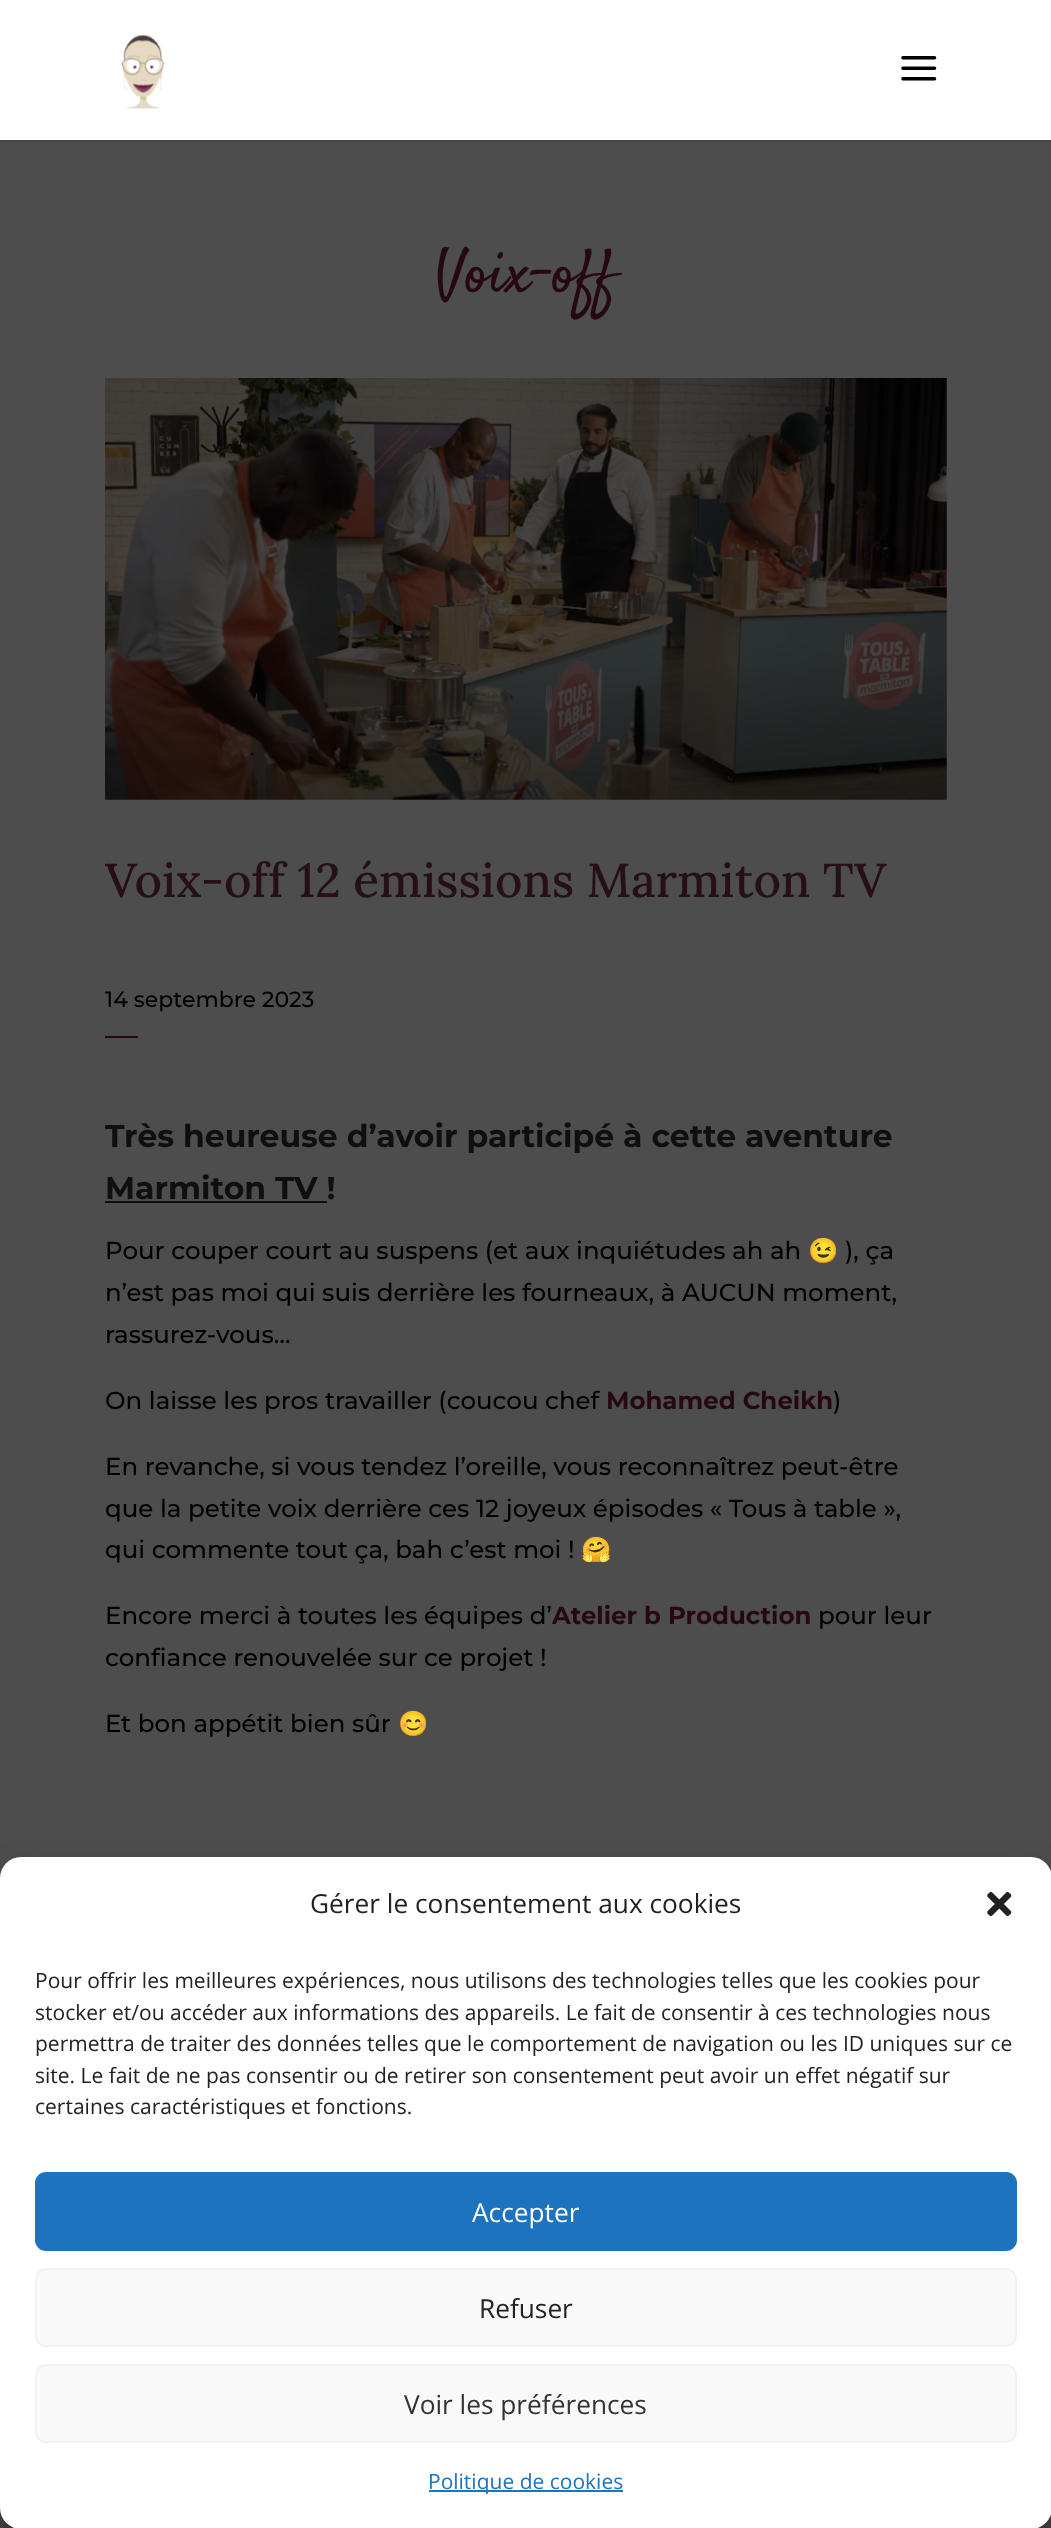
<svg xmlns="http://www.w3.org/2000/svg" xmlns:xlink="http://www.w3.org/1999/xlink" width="1051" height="2528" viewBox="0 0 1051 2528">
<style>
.cls-1{font:61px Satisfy;fill:#260815}
.cls-2{font:500 47.6px Lora;fill:#260f17}
.cls-3{font:100 22px Montserrat;fill:#000000}
.cls-4{font:100 31.5px 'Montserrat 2';fill:#0f0f0f}
.cls-5{font:100 24.5px Montserrat;fill:#000000}
.cls-6{font:24.5px Noto Color Emoji;fill:#000000}
.cls-7{font:100 24.5px 'Montserrat 2';fill:#260815}
.cls-8{font:26.25px Open Sans;fill:#222222}
.cls-9{font:21px Open Sans;fill:#222222}
.cls-10{font:26.25px Open Sans;fill:#ffffff}
.cls-11{font:26.25px Open Sans;fill:#333333}
.cls-12{font:21px Open Sans;fill:#1e73be}
</style>
<rect width="100%" height="100%" fill="#4d4d4d"/>
<path fill="#454545" d="M0 140V142H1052V2V140Z"/>
<rect fill="#ffffff" x="0" y="0" width="1051" height="140"/>
<image xlink:href="image0.png" x="120" y="35" width="46" height="74"/>
<image xlink:href="image1.png" x="901" y="56" width="36" height="25"/>
<image xlink:href="image2.png" x="105" y="378" width="842" height="422"/>
<rect fill="#260815" x="105" y="1036" width="33" height="2"/>
<rect fill="#0f0f0f" x="105" y="1201" width="222" height="2"/>
<rect fill="#000000" fill-opacity="0.23" filter="blur(5px)" x="0" y="1867" width="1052" height="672" rx="21"/>
<rect fill="#000000" fill-opacity="0.19" filter="blur(17.5px)" x="0" y="1874" width="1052" height="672" rx="21"/>
<rect fill="#ffffff" x="0" y="1857" width="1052" height="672" rx="21"/>
<image xlink:href="image3.png" x="987" y="1892" width="25" height="24"/>
<rect fill="#1e73be" stroke="#1e73be" stroke-width="2" x="36" y="2173" width="980" height="77" rx="10"/>
<rect fill="#f9f9f9" stroke="#f2f2f2" stroke-width="2" x="36" y="2269" width="980" height="77" rx="10"/>
<rect fill="#f9f9f9" stroke="#f2f2f2" stroke-width="2" x="36" y="2365" width="980" height="77" rx="10"/>
<rect fill="#1e73be" x="429" y="2490" width="194" height="2"/>
<text class="cls-1" x="435" y="291">Voix-off</text>
<text class="cls-2" x="105" y="897">Voix-off 12 émissions Marmiton TV</text>
<text class="cls-3" x="105" y="1007">14 septembre 2023</text>
<text class="cls-4"><tspan x="105" y="1147">Très heureuse d’avoir participé à cette aventure</tspan><tspan x="105" y="1199">Marmiton TV !</tspan></text>
<text class="cls-5" x="105" y="1259">Pour couper court au suspens (et aux inquiétudes ah ah</text>
<text class="cls-6" x="808" y="1259">😉</text>
<text class="cls-5" x="845" y="1259">), ça</text>
<text class="cls-5"><tspan x="105" y="1301">n’est pas moi qui suis derrière les fourneaux, à AUCUN moment,</tspan><tspan x="105" y="1343">rassurez-vous…</tspan></text>
<text class="cls-5" x="105" y="1409">On laisse les pros travailler (coucou chef</text>
<text class="cls-7" x="606" y="1409">Mohamed Cheikh</text>
<text class="cls-5" x="833" y="1409">)</text>
<text class="cls-5"><tspan x="105" y="1475">En revanche, si vous tendez l’oreille, vous reconnaîtrez peut-être</tspan><tspan x="105" y="1517">que la petite voix derrière ces 12 joyeux épisodes « Tous à table »,</tspan><tspan x="105" y="1558">qui commente tout ça, bah c’est moi !</tspan></text>
<text class="cls-6" x="581" y="1558">🤗</text>
<text class="cls-5" x="105" y="1624">Encore merci à toutes les équipes d’</text>
<text class="cls-7" x="552" y="1624">Atelier b Production</text>
<text class="cls-5" x="818" y="1624">pour leur</text>
<text class="cls-5" x="105" y="1666">confiance renouvelée sur ce projet !</text>
<text class="cls-5" x="105" y="1732">Et bon appétit bien sûr</text>
<text class="cls-6" x="398" y="1732">😊</text>
<text class="cls-8" x="310" y="1913">Gérer le consentement aux cookies</text>
<text class="cls-9"><tspan x="35" y="1988">Pour offrir les meilleures expériences, nous utilisons des technologies telles que les cookies pour</tspan><tspan x="35" y="2020">stocker et/ou accéder aux informations des appareils. Le fait de consentir à ces technologies nous</tspan><tspan x="35" y="2051">permettra de traiter des données telles que le comportement de navigation ou les ID uniques sur ce</tspan><tspan x="35" y="2083">site. Le fait de ne pas consentir ou de retirer son consentement peut avoir un effet négatif sur</tspan><tspan x="35" y="2114">certaines caractéristiques et fonctions.</tspan></text>
<text class="cls-10" x="472" y="2222">Accepter</text>
<text class="cls-8" x="479" y="2318">Refuser</text>
<text class="cls-11" x="404" y="2414">Voir les préférences</text>
<text class="cls-12" x="428" y="2489">Politique de cookies</text>
</svg>
